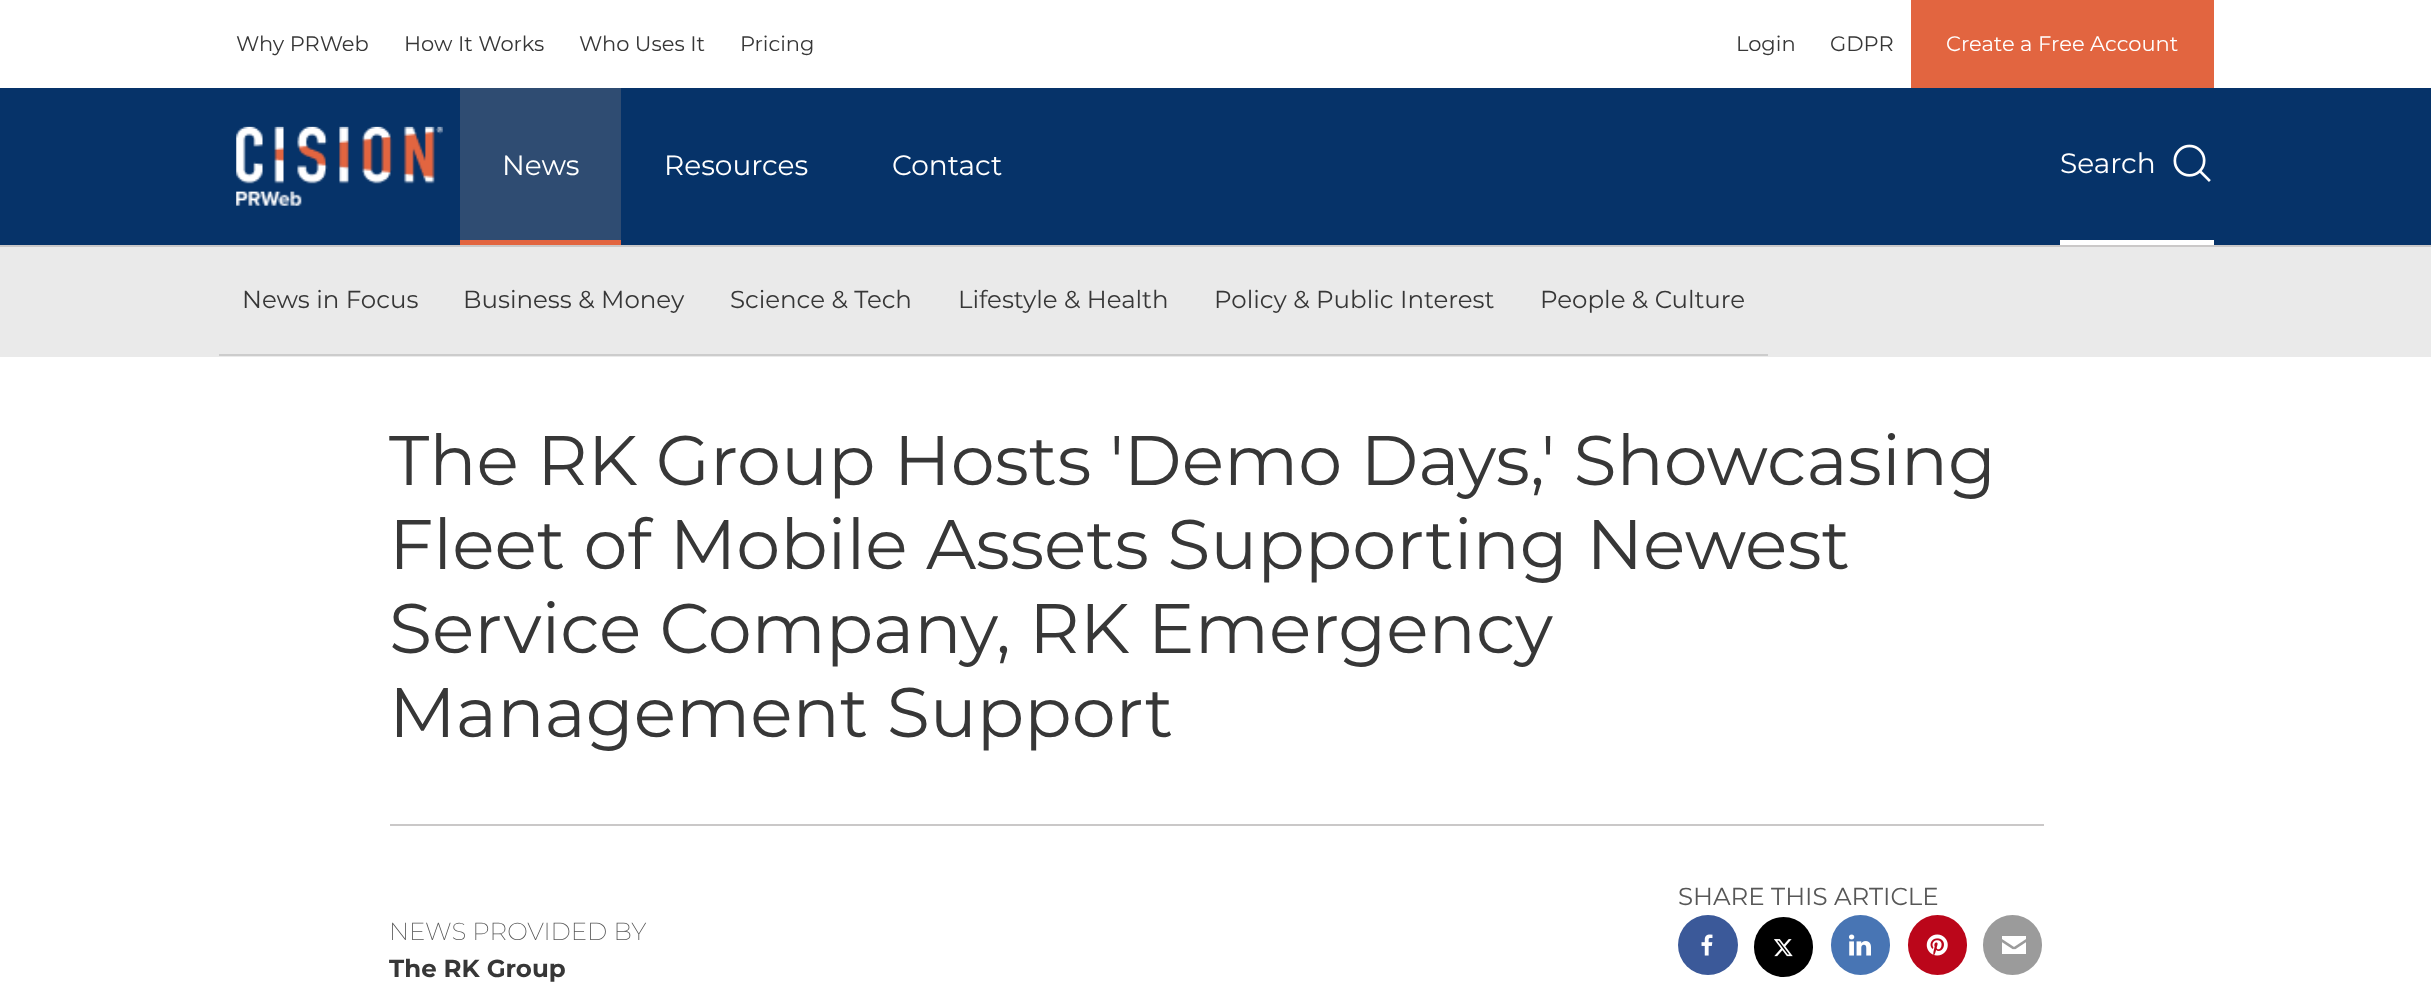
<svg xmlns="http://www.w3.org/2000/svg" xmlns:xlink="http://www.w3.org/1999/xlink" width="2431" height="999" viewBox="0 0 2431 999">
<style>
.cls-1{font:21px Montserrat;fill:#373737}
.cls-2{font:21px Montserrat;fill:#ffffff}
.cls-3{font:28px Montserrat;fill:#ffffff}
.cls-4{font:24.5px Montserrat;fill:#373737}
.cls-5{font:70px Montserrat;fill:#373737}
.cls-6{font:24.5px Montserrat;fill:#575757}
.cls-7{font:200 24.5px Montserrat;fill:#575757}
.cls-8{font:bold 24.5px Montserrat;fill:#373737}
</style>
<rect width="100%" height="100%" fill="#ffffff"/>
<rect fill="#e26540" x="1911" y="0" width="303" height="88"/>
<rect fill="#063369" x="0" y="88" width="2431" height="157"/>
<rect fill="#cac8c8" x="0" y="245" width="2431" height="2"/>
<image xlink:href="image0.png" x="236" y="126" width="207" height="80"/>
<rect fill="#2f4c72" x="460" y="88" width="161" height="152"/>
<rect fill="#e26540" x="460" y="240" width="161" height="5"/>
<rect fill="#ffffff" x="2060" y="240" width="154" height="5"/>
<image xlink:href="image1.png" x="2173" y="144" width="38" height="38"/>
<rect fill="#eaeaea" x="0" y="247" width="2431" height="110"/>
<rect fill="#cccccc" x="219" y="354" width="1549" height="2"/>
<rect fill="#cac8c8" x="390" y="824" width="1654" height="2"/>
<circle fill="#3b5999" cx="1708" cy="945" r="30"/>
<image xlink:href="image2.png" x="1701" y="934" width="12" height="22"/>
<rect fill="#000000" x="1754" y="917" width="59" height="60" rx="29.5"/>
<image xlink:href="image3.png" x="1774" y="939" width="19" height="18"/>
<rect fill="#4875b4" x="1831" y="915" width="59" height="60" rx="29.5"/>
<image xlink:href="image4.png" x="1849" y="934" width="22" height="22"/>
<rect fill="#bb061a" x="1908" y="915" width="59" height="60" rx="29.5"/>
<image xlink:href="image5.png" x="1926" y="934" width="22" height="22"/>
<rect fill="#9b9b9b" x="1983" y="915" width="59" height="60" rx="29.5"/>
<image xlink:href="image6.png" x="2002" y="936" width="24" height="18"/>
<text class="cls-1" x="236" y="51">Why PRWeb</text>
<text class="cls-1" x="404" y="51">How It Works</text>
<text class="cls-1" x="579" y="51">Who Uses It</text>
<text class="cls-1" x="740" y="51">Pricing</text>
<text class="cls-1" x="1736" y="51">Login</text>
<text class="cls-1" x="1830" y="51">GDPR</text>
<text class="cls-2" x="1946" y="51">Create a Free Account</text>
<text class="cls-3" x="502" y="175">News</text>
<text class="cls-3" x="664" y="175">Resources</text>
<text class="cls-3" x="892" y="175">Contact</text>
<text class="cls-3" x="2060" y="173">Search</text>
<text class="cls-4" x="242" y="308">News in Focus</text>
<text class="cls-4" x="463" y="308">Business &amp; Money</text>
<text class="cls-4" x="730" y="308">Science &amp; Tech</text>
<text class="cls-4" x="958" y="308">Lifestyle &amp; Health</text>
<text class="cls-4" x="1214" y="308">Policy &amp; Public Interest</text>
<text class="cls-4" x="1540" y="308">People &amp; Culture</text>
<text class="cls-5"><tspan x="389" y="485">The RK Group Hosts 'Demo Days,' Showcasing</tspan><tspan x="389" y="569">Fleet of Mobile Assets Supporting Newest</tspan><tspan x="389" y="653">Service Company, RK Emergency</tspan><tspan x="389" y="737">Management Support</tspan></text>
<text class="cls-6" x="1678" y="905">SHARE THIS ARTICLE</text>
<text class="cls-7" x="389" y="940">NEWS PROVIDED BY</text>
<text class="cls-8" x="389" y="977">The RK Group</text>
</svg>
